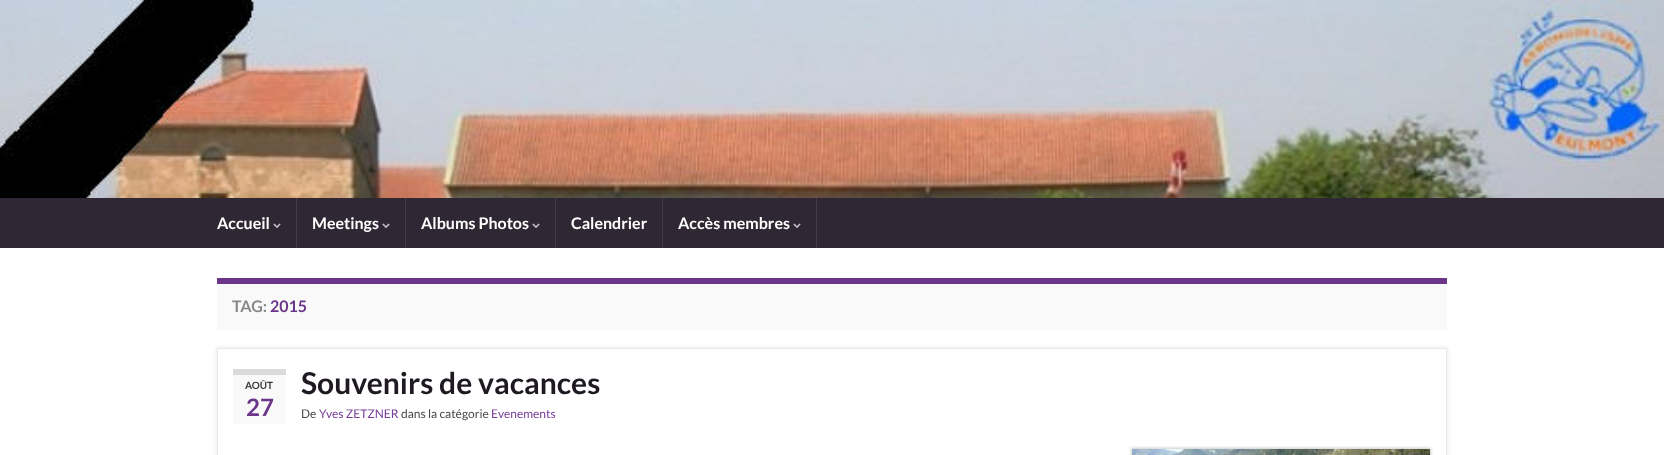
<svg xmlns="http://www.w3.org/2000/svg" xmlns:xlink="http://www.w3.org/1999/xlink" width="1664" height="455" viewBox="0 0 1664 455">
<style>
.cls-1{font:bold 16px Lato;fill:#ffffff}
.cls-2{font:bold 16px Lato;fill:#888888}
.cls-3{font:bold 16px Lato;fill:#6b3589}
.cls-4{font:bold 10px Lato;fill:#3b383d}
.cls-5{font:bold 24px Lato;fill:#6b3589}
.cls-6{font:bold 30px Lato;fill:#1f1a22}
.cls-7{font:12px Lato;fill:#4a474b}
.cls-8{font:12px Lato;fill:#783d98}
</style>
<defs>
<clipPath id="clip1"><path d="M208 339H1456V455H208ZM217 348H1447V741H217Z" clip-rule="evenodd"/></clipPath>
</defs>
<rect width="100%" height="100%" fill="#ffffff"/>
<image xlink:href="image0.png" x="0" y="0" width="1664" height="198"/>
<rect fill="#2f2733" x="0" y="198" width="1664" height="50"/>
<rect fill="#443d47" x="296" y="198" width="1" height="50"/>
<image xlink:href="image1.png" x="273" y="223" width="8" height="5"/>
<rect fill="#443d47" x="405" y="198" width="1" height="50"/>
<image xlink:href="image1.png" x="382" y="223" width="8" height="5"/>
<rect fill="#443d47" x="555" y="198" width="1" height="50"/>
<image xlink:href="image1.png" x="532" y="223" width="8" height="5"/>
<rect fill="#443d47" x="662" y="198" width="1" height="50"/>
<rect fill="#443d47" x="816" y="198" width="1" height="50"/>
<image xlink:href="image1.png" x="793" y="223" width="8" height="5"/>
<rect fill="#f9f9f9" x="217" y="284" width="1230" height="46"/>
<rect fill="#6b3589" x="217" y="278" width="1230" height="6"/>
<g clip-path="url(#clip1)">
<rect fill="#000000" fill-opacity="0.1" filter="blur(2.5px)" x="217" y="348" width="1230" height="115"/>
</g>
<rect fill="none" stroke="#e9e8e3" x="217.5" y="348.5" width="1229" height="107"/>
<rect fill="#f9f9f9" x="233" y="375" width="53" height="49"/>
<rect fill="#dbdbdb" x="233" y="369" width="53" height="6"/>
<rect fill="#000000" fill-opacity="0.2" filter="blur(1.5px)" x="1131" y="448" width="300" height="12"/>
<image xlink:href="image2.png" x="1132" y="449" width="298" height="6"/>
<text class="cls-1" x="217" y="229">Accueil</text>
<text class="cls-1" x="312" y="229">Meetings</text>
<text class="cls-1" x="421" y="229">Albums Photos</text>
<text class="cls-1" x="571" y="229">Calendrier</text>
<text class="cls-1" x="678" y="229">Accès membres</text>
<text class="cls-2" x="232" y="312">TAG:</text>
<text class="cls-3" x="270" y="312">2015</text>
<text class="cls-4" x="245" y="389">AOÛT</text>
<text class="cls-5" x="246" y="416">27</text>
<text class="cls-6" x="301" y="394">Souvenirs de vacances</text>
<text class="cls-7" x="301" y="418">De</text>
<text class="cls-8" x="319" y="418">Yves ZETZNER</text>
<text class="cls-7" x="401" y="418">dans la catégorie</text>
<text class="cls-8" x="491" y="418">Evenements</text>
</svg>
